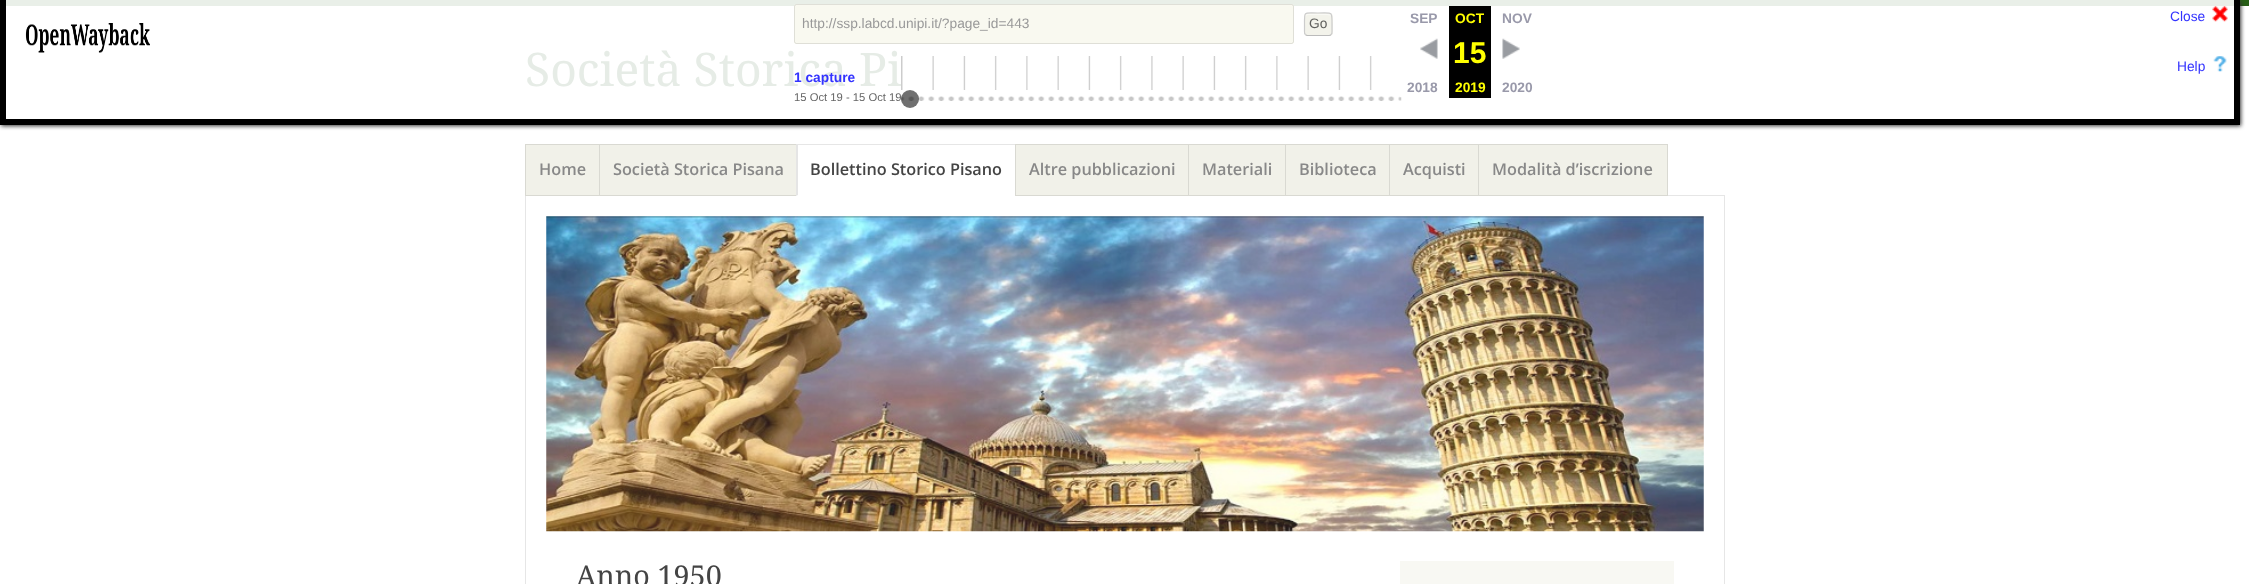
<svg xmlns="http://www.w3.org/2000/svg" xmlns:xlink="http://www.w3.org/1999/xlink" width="2249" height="584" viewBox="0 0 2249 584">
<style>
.cls-1{font:13.75px Liberation Sans;fill:#999999}
.cls-2{font:13.75px Liberation Sans;fill:#61615e}
.cls-3{font:bold 13.75px Liberation Sans;fill:#9999aa}
.cls-4{font:bold 13.75px Liberation Sans;fill:#ffff00}
.cls-5{font:bold 30px Liberation Sans;fill:#ffff00}
.cls-6{font:11.25px Liberation Sans;fill:#666666}
.cls-7{font:13.75px Liberation Sans;fill:#3333ff}
.cls-8{font:46.25px Droid Serif;fill:#e6ece6}
.cls-9{font:bold 13.75px Liberation Sans;fill:#3333ff}
.cls-10{font:600 16.25px Open Sans;fill:#888888}
.cls-11{font:600 16.25px Open Sans;fill:#444444}
.cls-12{font:28.75px Droid Serif;fill:#444444}
</style>
<defs>
<clipPath id="clip1"><path d="M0 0H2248V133H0ZM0 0H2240V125H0Z" clip-rule="evenodd"/></clipPath>
</defs>
<rect width="100%" height="100%" fill="#ffffff"/>
<rect fill="#265e15" x="2240" y="0" width="9" height="6"/>
<rect fill="#e9efe8" x="0" y="0" width="2240" height="6"/>
<g clip-path="url(#clip1)">
<rect fill="#333333" filter="blur(2px)" x="1" y="1" width="2240" height="125"/>
</g>
<rect fill="#000000" x="2234" y="0" width="6" height="125"/>
<rect fill="#000000" x="0" y="119" width="2240" height="6"/>
<rect fill="#000000" x="0" y="0" width="6" height="125"/>
<image xlink:href="image0.png" x="25" y="23" width="125" height="30"/>
<rect fill="#f9f9f0" x="794" y="4" width="500" height="40" rx="2.5"/>
<rect fill="none" stroke="#000000" stroke-opacity="0.1" x="794.5" y="4.5" width="499" height="39" rx="2"/>
<rect fill="#f3f3eb" x="1304" y="13" width="29" height="23" rx="4"/>
<path fill="#f9f9f5" d="M1308 15H1325C1328.5 15 1330.5 15.5 1331 16.5C1331 13.5 1327 14 1325 14H1311C1308 14 1305 13.5 1305 17C1305.5 16 1306.5 15 1308 15Z"/>
<path fill="none" stroke="#bbbbbb" stroke-width="1.2" d="M1331 34.5C1330.5 35.5 1329.5 35.5 1329 35.5H1307.5C1306.5 35.5 1306 35.5 1305.5 34.5"/>
<path fill="none" stroke="#cccccc" stroke-width="1.2" d="M1305.5 34.5C1304 33.5 1304.5 31.5 1304.5 30V24.5C1304.5 10.5 1303.5 13 1318 13C1332.5 13 1332 10.5 1332 24.5V30C1332 31.5 1332.5 33.5 1331 34.5"/>
<rect fill="#000000" x="1449" y="6" width="42" height="92"/>
<image xlink:href="image1.png" x="1420" y="38" width="18" height="21"/>
<image xlink:href="image2.png" x="1502" y="38" width="18" height="21"/>
<image xlink:href="image4.png" x="901" y="96" width="501" height="5"/>
<circle fill="#000000" fill-opacity="0.56" cx="910" cy="99" r="9"/>
<image xlink:href="image5.png" x="2212" y="6" width="16" height="16"/>
<image xlink:href="image6.png" x="2213" y="56" width="14" height="16"/>
<rect fill="none" stroke="#e6e6e6" x="525.5" y="195.5" width="1199" height="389"/>
<rect fill="#f1f1e9" stroke="#d9d9d2" x="525.5" y="144.5" width="74" height="51"/>
<rect fill="#f1f1e9" x="600" y="145" width="196" height="50"/>
<rect fill="none" stroke="#d9d9d2" x="599.5" y="144.5" width="198" height="51"/>
<rect fill="#ffffff" x="796" y="144" width="219" height="52"/>
<path fill="#e6e6e6" d="M796 144H1016L1015 145H798Z"/>
<path fill="#ffffff" d="M1016 196H796L798 195H1015Z"/>
<path fill="#000000" fill-opacity="0.1" d="M796 196V144L798 145V195Z"/>
<rect fill="#f1f1e9" x="1016" y="145" width="172" height="50"/>
<rect fill="none" stroke="#d9d9d2" x="1015.5" y="144.5" width="174" height="51"/>
<rect fill="#f1f1e9" stroke="#d9d9d2" x="1188.5" y="144.5" width="97" height="51"/>
<rect fill="#f1f1e9" stroke="#d9d9d2" x="1285.5" y="144.5" width="104" height="51"/>
<rect fill="#f1f1e9" x="1390" y="145" width="88" height="50"/>
<rect fill="none" stroke="#d9d9d2" x="1389.5" y="144.5" width="90" height="51"/>
<rect fill="#f1f1e9" stroke="#d9d9d2" x="1478.5" y="144.5" width="189" height="51"/>
<image xlink:href="image7.png" x="546" y="216" width="1158" height="316"/>
<rect fill="#f8f8f3" x="1400" y="561" width="274" height="23"/>
<text class="cls-1" x="802" y="28">http://ssp.labcd.unipi.it/?page_id=443</text>
<text class="cls-2" x="1309" y="28">Go</text>
<text class="cls-3" x="1410" y="23">SEP</text>
<text class="cls-4" x="1455" y="23">OCT</text>
<text class="cls-3" x="1502" y="23">NOV</text>
<text class="cls-5" x="1453" y="63">15</text>
<text class="cls-3" x="1407" y="92">2018</text>
<text class="cls-4" x="1455" y="92">2019</text>
<text class="cls-3" x="1502" y="92">2020</text>
<text class="cls-6" x="794" y="101">15 Oct 19 - 15 Oct 19</text>
<text class="cls-7" x="2170" y="21">Close</text>
<text class="cls-7" x="2177" y="71">Help</text>
<text class="cls-8" x="525" y="86">Società Storica Pi</text>
<image xlink:href="image3.png" x="901" y="56" width="471" height="34"/>
<text class="cls-9" x="794" y="82">1 capture</text>
<text class="cls-10" x="539" y="175">Home</text>
<text class="cls-10" x="613" y="175">Società Storica Pisana</text>
<text class="cls-11" x="810" y="175">Bollettino Storico Pisano</text>
<text class="cls-10" x="1029" y="175">Altre pubblicazioni</text>
<text class="cls-10" x="1202" y="175">Materiali</text>
<text class="cls-10" x="1299" y="175">Biblioteca</text>
<text class="cls-10" x="1403" y="175">Acquisti</text>
<text class="cls-10" x="1492" y="175">Modalità d’iscrizione</text>
<text class="cls-12" x="576" y="586">Anno 1950</text>
</svg>
